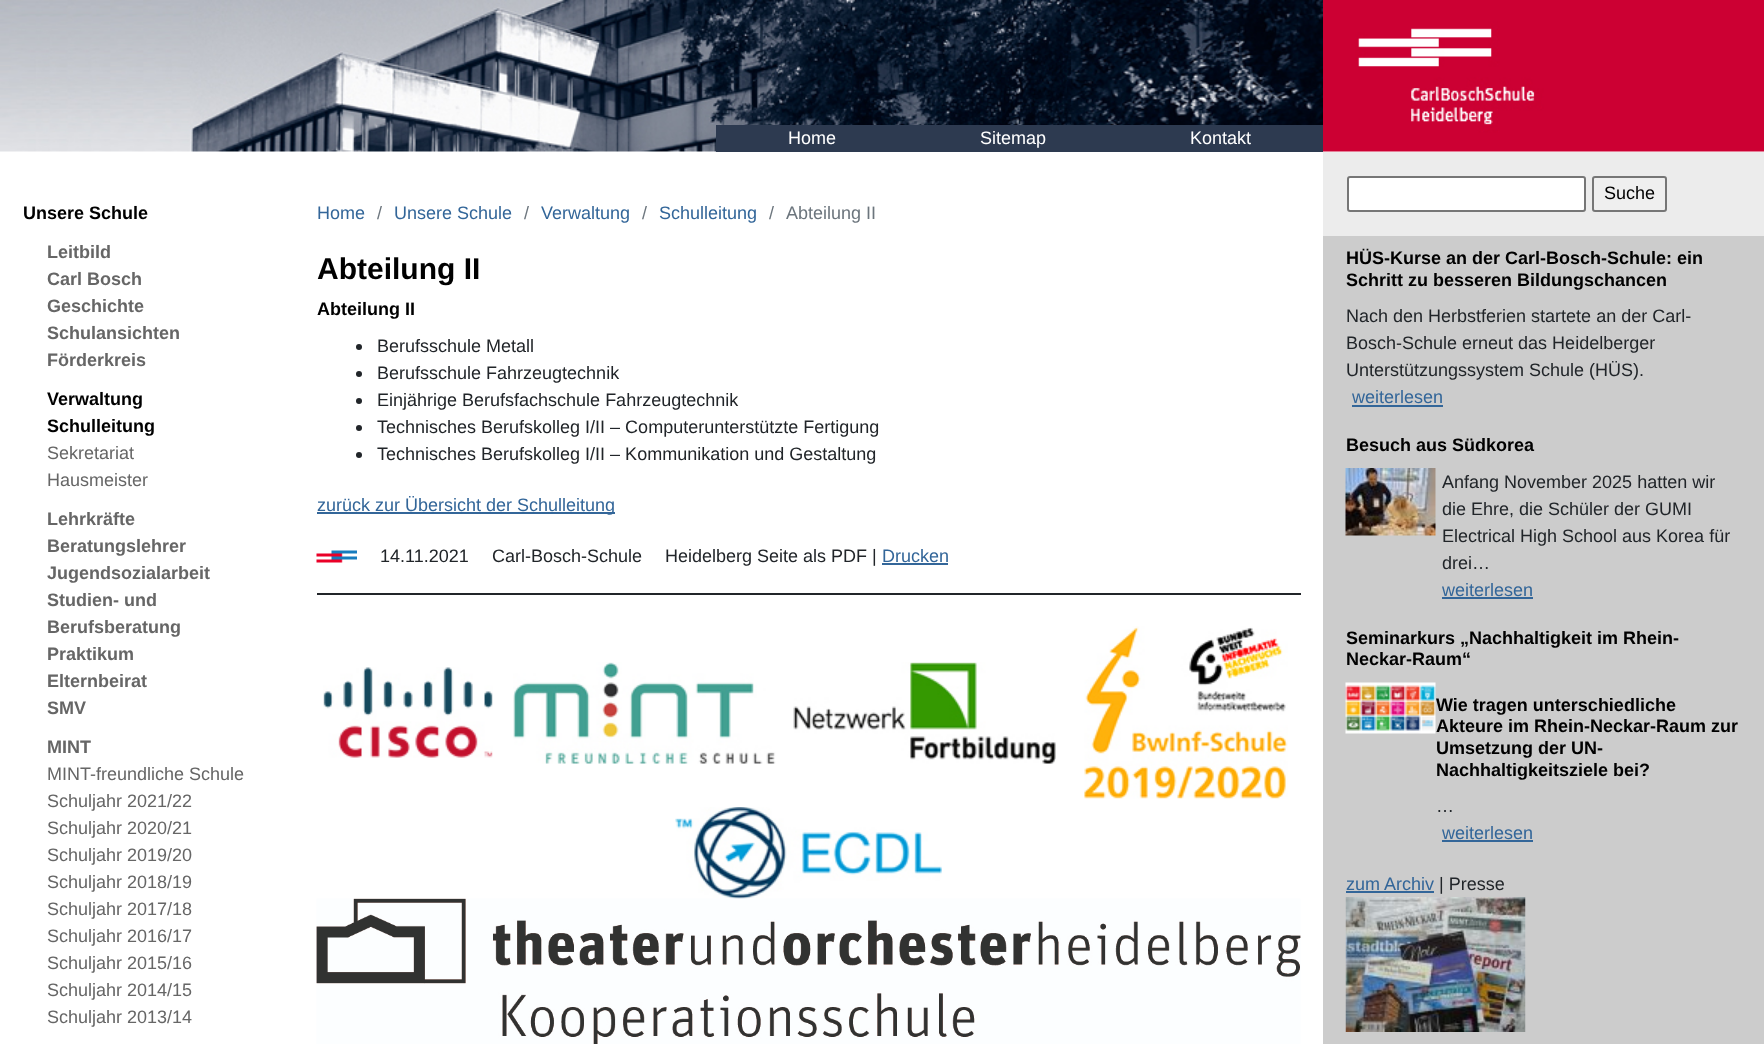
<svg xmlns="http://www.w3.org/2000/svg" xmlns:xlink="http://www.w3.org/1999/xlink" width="1764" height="1044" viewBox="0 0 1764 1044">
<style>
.cls-1{font:18px Liberation Sans;fill:#ffffff}
.cls-2{font:bold 18px Liberation Sans;fill:#000000}
.cls-3{font:bold 18px Liberation Sans;fill:#666666}
.cls-4{font:18px Liberation Sans;fill:#666666}
.cls-5{font:18px Liberation Sans;fill:#336699}
.cls-6{font:18px Liberation Sans;fill:#6c757d}
.cls-7{font:bold 30px Liberation Sans;fill:#000000}
.cls-8{font:18px Liberation Sans;fill:#212529}
.cls-9{font:18px Liberation Sans;fill:#000000}
</style>
<rect width="100%" height="100%" fill="#ffffff"/>
<image xlink:href="image0.png" x="0" y="0" width="1323" height="152"/>
<rect fill="#2d3a50" x="716" y="125" width="607" height="27"/>
<image xlink:href="image1.png" x="1323" y="0" width="441" height="152"/>
<circle fill="#212529" cx="359" cy="347" r="3"/>
<circle fill="#212529" cx="359" cy="374" r="3"/>
<circle fill="#212529" cx="359" cy="401" r="3"/>
<circle fill="#212529" cx="359" cy="428" r="3"/>
<circle fill="#212529" cx="359" cy="455" r="3"/>
<rect fill="#336699" x="317" y="512" width="298" height="2"/>
<image xlink:href="image2.png" x="316" y="550" width="41" height="13"/>
<rect fill="#336699" x="882" y="563" width="66" height="2"/>
<rect fill="#212529" x="317" y="593" width="984" height="2"/>
<image xlink:href="image3.png" x="323" y="667" width="170" height="91"/>
<image xlink:href="image4.png" x="513" y="662" width="263" height="102"/>
<image xlink:href="image5.png" x="793" y="662" width="263" height="102"/>
<image xlink:href="image6.png" x="1084" y="626" width="204" height="173"/>
<image xlink:href="image7.png" x="675" y="807" width="267" height="92"/>
<image xlink:href="image8.png" x="316" y="898" width="985" height="146"/>
<rect fill="#cccccc" x="1323" y="236" width="441" height="808"/>
<rect fill="#ececec" x="1323" y="152" width="441" height="84"/>
<rect fill="#ffffff" stroke="#767676" stroke-width="2" x="1348" y="177" width="237" height="34" rx="2"/>
<rect fill="#efefef" stroke="#767676" stroke-width="2" x="1593" y="177" width="73" height="34" rx="2"/>
<rect fill="#336699" x="1352" y="405" width="91" height="2"/>
<image xlink:href="image9.png" x="1345" y="468" width="91" height="68"/>
<rect fill="#336699" x="1442" y="597" width="91" height="2"/>
<image xlink:href="image10.png" x="1345" y="682" width="91" height="52"/>
<rect fill="#336699" x="1442" y="840" width="91" height="2"/>
<rect fill="#336699" x="1346" y="891" width="88" height="2"/>
<image xlink:href="image11.png" x="1345" y="897" width="181" height="135"/>
<text class="cls-1" x="788" y="144">Home</text>
<text class="cls-1" x="980" y="144">Sitemap</text>
<text class="cls-1" x="1190" y="144">Kontakt</text>
<text class="cls-2" x="23" y="219">Unsere Schule</text>
<text class="cls-3"><tspan x="47" y="258">Leitbild</tspan><tspan x="47" y="285">Carl Bosch</tspan><tspan x="47" y="312">Geschichte</tspan><tspan x="47" y="339">Schulansichten</tspan><tspan x="47" y="366">Förderkreis</tspan></text>
<text class="cls-2"><tspan x="47" y="405">Verwaltung</tspan><tspan x="47" y="432">Schulleitung</tspan></text>
<text class="cls-4"><tspan x="47" y="459">Sekretariat</tspan><tspan x="47" y="486">Hausmeister</tspan></text>
<text class="cls-3"><tspan x="47" y="525">Lehrkräfte</tspan><tspan x="47" y="552">Beratungslehrer</tspan><tspan x="47" y="579">Jugendsozialarbeit</tspan><tspan x="47" y="606">Studien- und</tspan><tspan x="47" y="633">Berufsberatung</tspan><tspan x="47" y="660">Praktikum</tspan><tspan x="47" y="687">Elternbeirat</tspan><tspan x="47" y="714">SMV</tspan></text>
<text class="cls-3" x="47" y="753">MINT</text>
<text class="cls-4"><tspan x="47" y="780">MINT-freundliche Schule</tspan><tspan x="47" y="807">Schuljahr 2021/22</tspan><tspan x="47" y="834">Schuljahr 2020/21</tspan><tspan x="47" y="861">Schuljahr 2019/20</tspan><tspan x="47" y="888">Schuljahr 2018/19</tspan><tspan x="47" y="915">Schuljahr 2017/18</tspan><tspan x="47" y="942">Schuljahr 2016/17</tspan><tspan x="47" y="969">Schuljahr 2015/16</tspan><tspan x="47" y="996">Schuljahr 2014/15</tspan><tspan x="47" y="1023">Schuljahr 2013/14</tspan></text>
<text class="cls-5" x="317" y="219">Home</text>
<text class="cls-6" x="377" y="219">/</text>
<text class="cls-5" x="394" y="219">Unsere Schule</text>
<text class="cls-6" x="524" y="219">/</text>
<text class="cls-5" x="541" y="219">Verwaltung</text>
<text class="cls-6" x="642" y="219">/</text>
<text class="cls-5" x="659" y="219">Schulleitung</text>
<text class="cls-6" x="769" y="219">/</text>
<text class="cls-6" x="786" y="219">Abteilung II</text>
<text class="cls-7" x="317" y="279">Abteilung II</text>
<text class="cls-2" x="317" y="315">Abteilung II</text>
<text class="cls-8"><tspan x="377" y="352">Berufsschule Metall</tspan><tspan x="377" y="379">Berufsschule Fahrzeugtechnik</tspan><tspan x="377" y="406">Einjährige Berufsfachschule Fahrzeugtechnik</tspan><tspan x="377" y="433">Technisches Berufskolleg I/II – Computerunterstützte Fertigung</tspan><tspan x="377" y="460">Technisches Berufskolleg I/II – Kommunikation und Gestaltung</tspan></text>
<text class="cls-5" x="317" y="511">zurück zur Übersicht der Schulleitung</text>
<text class="cls-8" x="380" y="562">14.11.2021</text>
<text class="cls-8" x="492" y="562">Carl-Bosch-Schule</text>
<text class="cls-8" x="665" y="562">Heidelberg Seite als PDF |</text>
<text class="cls-5" x="882" y="562">Drucken</text>
<text class="cls-9" x="1604" y="199">Suche</text>
<text class="cls-2"><tspan x="1346" y="264">HÜS-Kurse an der Carl-Bosch-Schule: ein</tspan><tspan x="1346" y="286">Schritt zu besseren Bildungschancen</tspan></text>
<text class="cls-8"><tspan x="1346" y="322">Nach den Herbstferien startete an der Carl-</tspan><tspan x="1346" y="349">Bosch-Schule erneut das Heidelberger</tspan><tspan x="1346" y="376">Unterstützungssystem Schule (HÜS).</tspan></text>
<text class="cls-5" x="1352" y="403">weiterlesen</text>
<text class="cls-2" x="1346" y="451">Besuch aus Südkorea</text>
<text class="cls-8"><tspan x="1442" y="488">Anfang November 2025 hatten wir</tspan><tspan x="1442" y="515">die Ehre, die Schüler der GUMI</tspan><tspan x="1442" y="542">Electrical High School aus Korea für</tspan><tspan x="1442" y="569">drei…</tspan></text>
<text class="cls-5" x="1442" y="596">weiterlesen</text>
<text class="cls-2"><tspan x="1346" y="644">Seminarkurs „Nachhaltigkeit im Rhein-</tspan><tspan x="1346" y="665">Neckar-Raum“</tspan></text>
<text class="cls-2"><tspan x="1436" y="711">Wie tragen unterschiedliche</tspan><tspan x="1436" y="732">Akteure im Rhein-Neckar-Raum zur</tspan><tspan x="1436" y="754">Umsetzung der UN-</tspan><tspan x="1436" y="776">Nachhaltigkeitsziele bei?</tspan></text>
<text class="cls-8" x="1436" y="812">…</text>
<text class="cls-5" x="1442" y="839">weiterlesen</text>
<text class="cls-5" x="1346" y="890">zum Archiv</text>
<text class="cls-8" x="1439" y="890">| Presse</text>
</svg>
